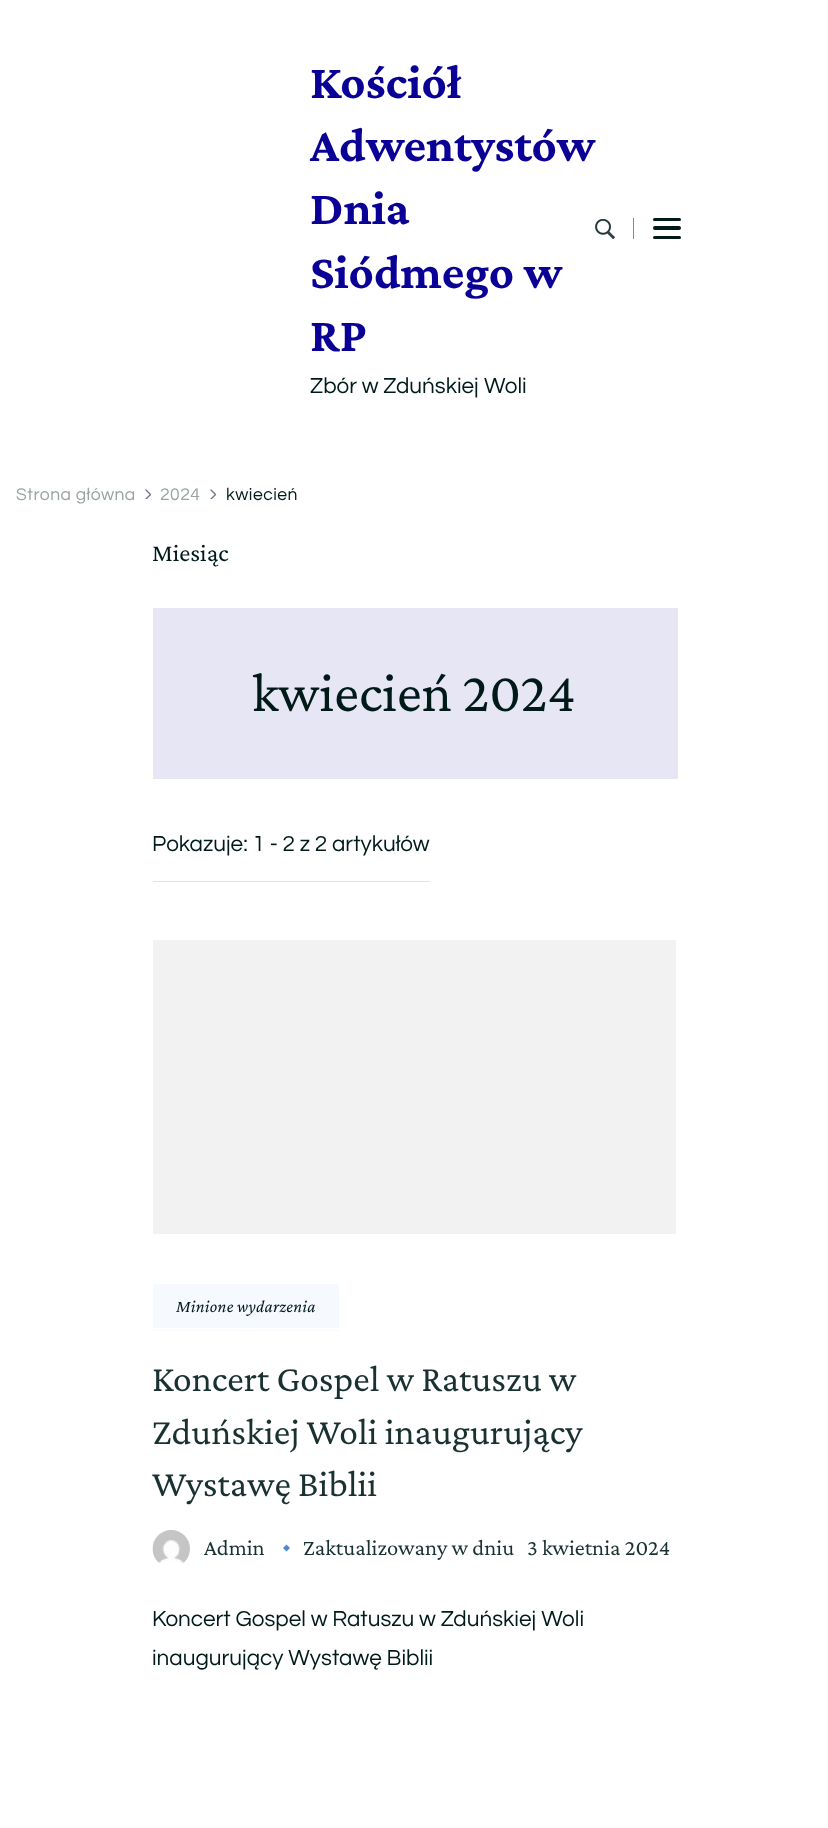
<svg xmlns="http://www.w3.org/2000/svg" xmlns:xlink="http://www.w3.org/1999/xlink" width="828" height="1828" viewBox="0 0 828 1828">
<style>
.cls-1{font:bold 48.75px Crimson Pro;fill:#0a0096}
.cls-2{font:22.5px Questrial;fill:#001a1a}
.cls-3{font:17.5px Questrial;letter-spacing:0.5px;fill:#99a3a3}
.cls-4{font:17.5px Questrial;letter-spacing:0.5px;fill:#001a1a}
.cls-5{font:25px Crimson Pro;fill:#001a1a}
.cls-6{font:56.25px Crimson Pro;fill:#001a1a}
.cls-7{font:italic 17.5px Crimson Pro;letter-spacing:0.25px;fill:#001a1a}
.cls-8{font:37.5px Crimson Pro;fill:#1a3131}
.cls-9{font:22.5px Crimson Pro;fill:#1a3131}
</style>
<defs>
<clipPath id="clip1"><rect x="145" y="489" width="6" height="10"/></clipPath>
<clipPath id="clip2"><rect x="210" y="489" width="6" height="10"/></clipPath>
</defs>
<rect width="100%" height="100%" fill="#ffffff"/>
<image xlink:href="image0.png" x="595" y="219" width="20" height="20"/>
<rect fill="#8580cb" x="633" y="218" width="1" height="21"/>
<rect fill="#001a1a" x="653" y="218" width="28" height="3" rx="1.5"/>
<rect fill="#001a1a" x="653" y="226" width="28" height="4" rx="2"/>
<rect fill="#001a1a" x="653" y="236" width="28" height="3" rx="1.5"/>
<g clip-path="url(#clip1)">
<path fill="none" stroke="#7d6a91" stroke-width="1.3" stroke-linecap="round" d="M146 490L150.5 494.5L146 499"/>
</g>
<g clip-path="url(#clip2)">
<path fill="none" stroke="#7d6a91" stroke-width="1.3" stroke-linecap="round" d="M211 490L215.5 494.5L211 499"/>
</g>
<rect fill="#e7e6f5" x="153" y="608" width="525" height="171"/>
<rect fill="#e2e0f2" x="153" y="881" width="277" height="1"/>
<rect fill="#f2f2f2" x="153" y="940" width="523" height="294"/>
<rect fill="#f6f9fd" x="153" y="1284" width="186" height="44"/>
<rect fill="#f6f9fd" x="153" y="1330" width="186" height="1"/>
<image xlink:href="image1.png" x="152" y="1530" width="38" height="34"/>
<path fill="#4e88d3" d="M286.5 1544.5L290 1548L286.5 1551.5L283 1548Z"/>
<text class="cls-1"><tspan x="310" y="98">Kościół</tspan><tspan x="310" y="161">Adwentystów</tspan><tspan x="310" y="224">Dnia</tspan><tspan x="310" y="288">Siódmego w</tspan><tspan x="310" y="351">RP</tspan></text>
<text class="cls-2" x="310" y="393">Zbór w Zduńskiej Woli</text>
<text class="cls-3" x="16" y="500">Strona główna</text>
<text class="cls-3" x="160" y="500">2024</text>
<text class="cls-4" x="226" y="500">kwiecień</text>
<text class="cls-5" x="152" y="561">Miesiąc</text>
<text class="cls-6" x="252" y="711">kwiecień 2024</text>
<text class="cls-2" x="152" y="851">Pokazuje: 1 - 2 z 2 artykułów</text>
<text class="cls-7" x="176" y="1312">Minione wydarzenia</text>
<text class="cls-8"><tspan x="152" y="1391">Koncert Gospel w Ratuszu w</tspan><tspan x="152" y="1444">Zduńskiej Woli inaugurujący</tspan><tspan x="152" y="1496">Wystawę Biblii</tspan></text>
<text class="cls-9" x="204" y="1555">Admin</text>
<text class="cls-9" x="303" y="1555">Zaktualizowany w dniu</text>
<text class="cls-9" x="527" y="1555">3 kwietnia 2024</text>
<text class="cls-2"><tspan x="152" y="1626">Koncert Gospel w Ratuszu w Zduńskiej Woli</tspan><tspan x="152" y="1665">inaugurujący Wystawę Biblii</tspan></text>
</svg>
